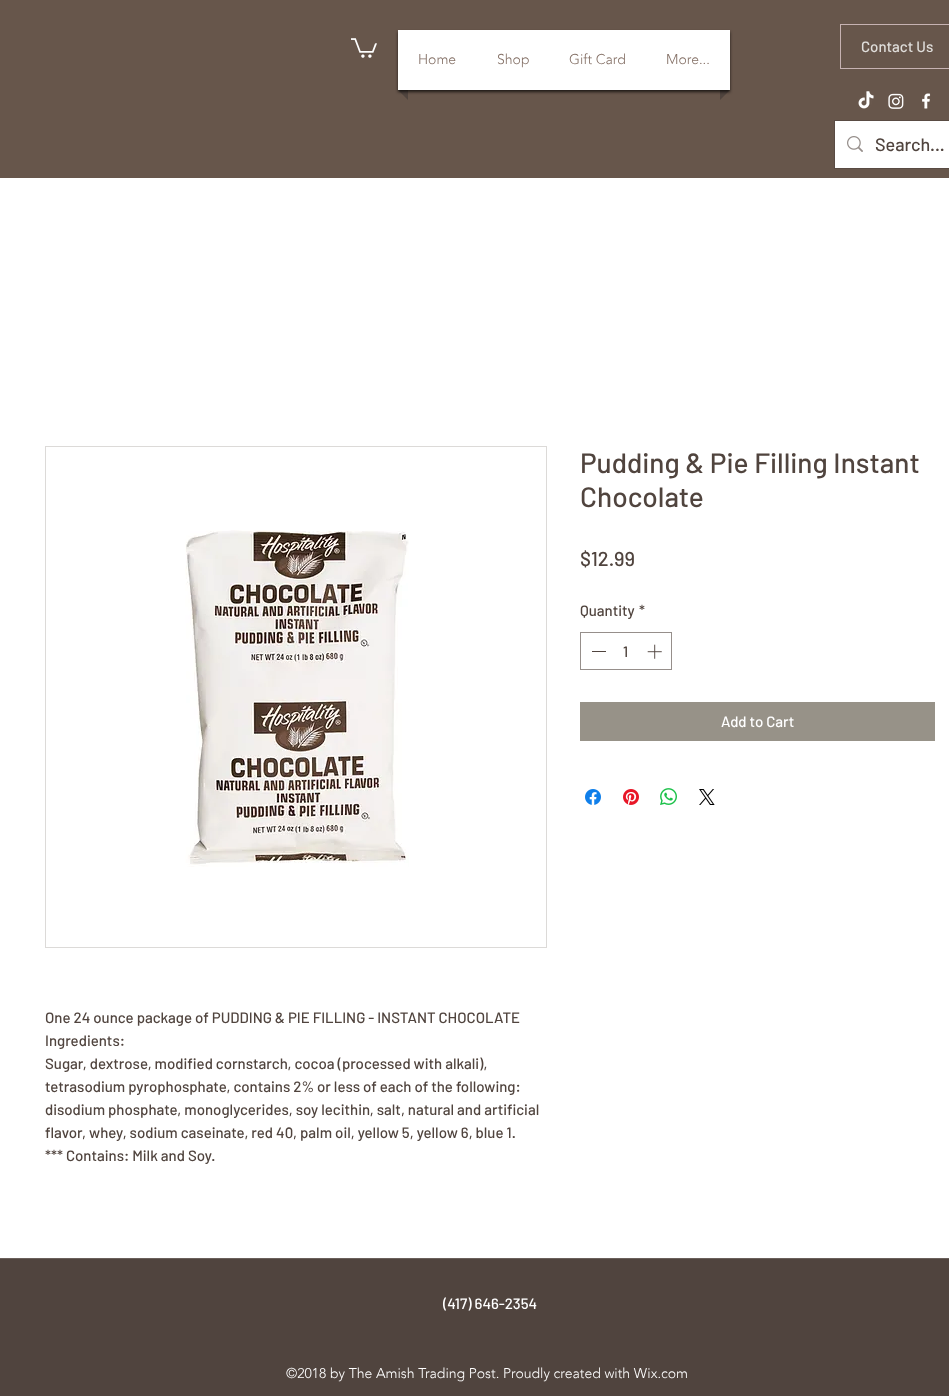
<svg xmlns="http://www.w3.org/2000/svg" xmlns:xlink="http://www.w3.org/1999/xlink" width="949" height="1396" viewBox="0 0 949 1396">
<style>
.cls-1{font:500 15px Barlow;fill:#e0dedb}
.cls-2{font:300 14px 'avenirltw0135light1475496';fill:#847066}
.cls-3{font:500 18px Barlow;fill:#50443e}
.cls-4{font:500 28px Barlow;fill:#50443e}
.cls-5{font:500 20px Barlow;fill:#50443e}
.cls-6{font:500 15px Barlow;fill:#50443e}
.cls-7{font:500 15px Barlow;fill:#ffffff}
.cls-8{font:300 14px 'avenirltw0135light1475496';fill:#ffffff}
</style>
<rect width="100%" height="100%" fill="#ffffff"/>
<rect fill="#67564b" x="0" y="0" width="949" height="178"/>
<image xlink:href="image0.png" x="351" y="38" width="26" height="20"/>
<rect fill="none" stroke="#c6b2b2" x="840.5" y="24.5" width="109" height="44"/>
<path fill="#50443e" d="M398 90H408V100Z"/>
<path fill="#50443e" d="M720 90H730L720 100Z"/>
<rect fill="#000000" fill-opacity="0.7" filter="blur(1.5px)" x="398" y="32" width="332" height="60"/>
<rect fill="#ffffff" x="398" y="30" width="332" height="60"/>
<image xlink:href="image1.png" x="858" y="91" width="16" height="18"/>
<image xlink:href="image2.png" x="888" y="93" width="16" height="16"/>
<image xlink:href="image3.png" x="922" y="93" width="9" height="16"/>
<rect fill="none" stroke="#594b43" x="834.5" y="120.5" width="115" height="48"/>
<rect fill="#ffffff" x="835" y="121" width="114" height="47"/>
<image xlink:href="image4.png" x="847" y="136" width="16" height="16"/>
<rect fill="none" stroke="#968f8b" x="580.5" y="632.5" width="91" height="37"/>
<rect fill="#50443e" x="592" y="651" width="14" height="1"/>
<image xlink:href="image5.png" x="647" y="644" width="15" height="15"/>
<rect fill="#979288" x="580" y="702" width="355" height="39"/>
<image xlink:href="image6.png" x="585" y="789" width="16" height="16"/>
<image xlink:href="image7.png" x="623" y="789" width="16" height="16"/>
<image xlink:href="image8.png" x="660" y="788" width="17" height="17"/>
<image xlink:href="image9.png" x="699" y="789" width="16" height="16"/>
<rect fill="none" stroke="#dcdad8" x="45.5" y="446.5" width="501" height="501"/>
<image xlink:href="image10.png" x="185" y="530" width="224" height="337"/>
<rect fill="#50443e" x="0" y="1259" width="949" height="137"/>
<rect fill="#6a605b" x="0" y="1258" width="949" height="1"/>
<text class="cls-1" x="861" y="52">Contact Us</text>
<text class="cls-2" x="418" y="64">Home</text>
<text class="cls-2" x="497" y="64">Shop</text>
<text class="cls-2" x="569" y="64">Gift Card</text>
<text class="cls-2" x="666" y="64">More...</text>
<text class="cls-3" x="875" y="151">Search...</text>
<text class="cls-4"><tspan x="580" y="473">Pudding &amp; Pie Filling Instant</tspan><tspan x="580" y="507">Chocolate</tspan></text>
<text class="cls-5" x="580" y="566">$12.99</text>
<text class="cls-6" x="580" y="616">Quantity</text>
<text class="cls-6" x="639" y="616">*</text>
<text class="cls-6" x="623" y="657">1</text>
<text class="cls-7" x="721" y="727">Add to Cart</text>
<text class="cls-6"><tspan x="45" y="1023">One 24 ounce package of PUDDING &amp; PIE FILLING - INSTANT CHOCOLATE</tspan><tspan x="45" y="1046">Ingredients:</tspan><tspan x="45" y="1069">Sugar, dextrose, modified cornstarch, cocoa (processed with alkali),</tspan><tspan x="45" y="1092">tetrasodium pyrophosphate, contains 2% or less of each of the following:</tspan><tspan x="45" y="1115">disodium phosphate, monoglycerides, soy lecithin, salt, natural and artificial</tspan><tspan x="45" y="1138">flavor, whey, sodium caseinate, red 40, palm oil, yellow 5, yellow 6, blue 1.</tspan><tspan x="45" y="1161">*** Contains: Milk and Soy.</tspan></text>
<text class="cls-7" x="443" y="1309">(417) 646-2354</text>
<text class="cls-8" x="286" y="1378">©2018 by The Amish Trading Post. Proudly created with Wix.com</text>
</svg>
